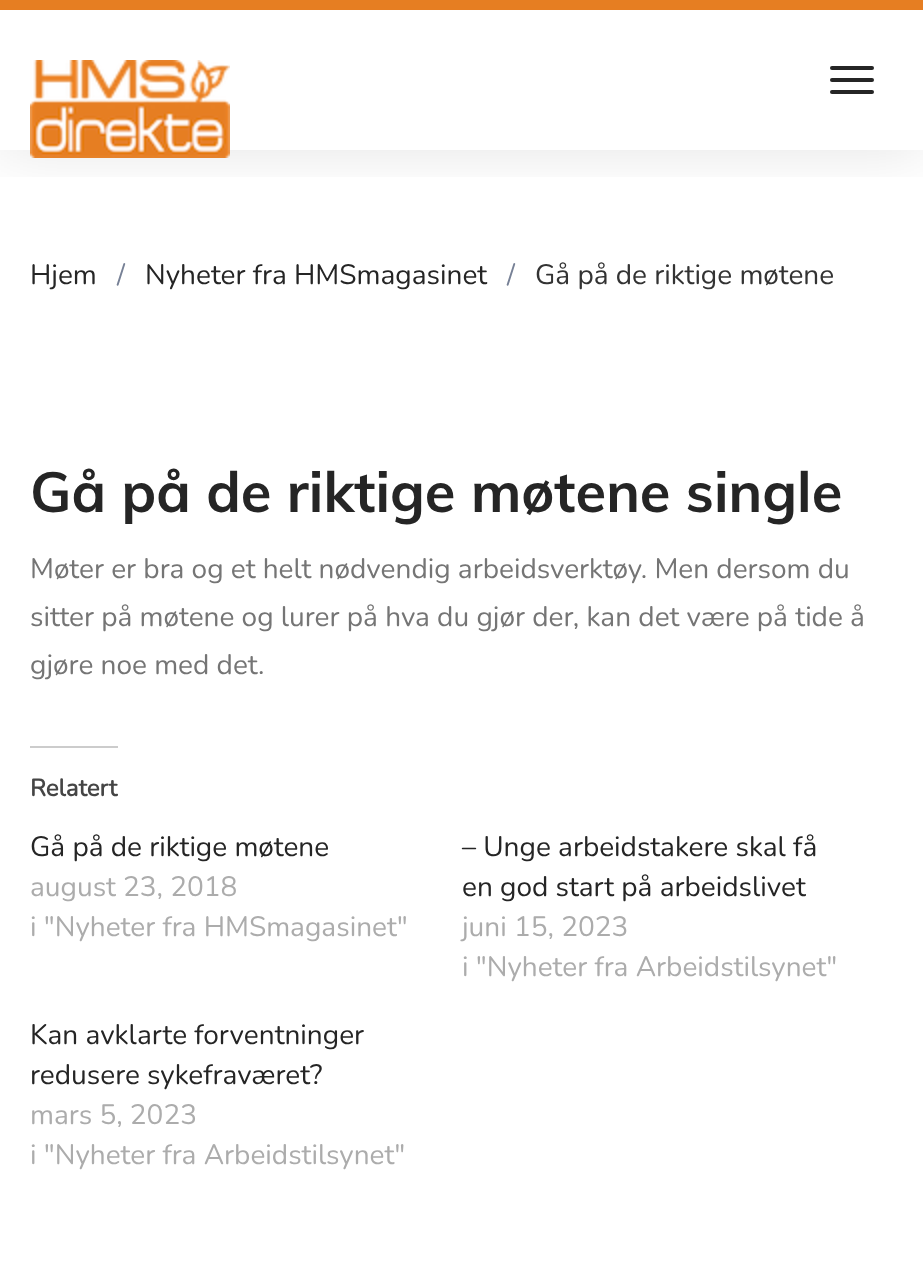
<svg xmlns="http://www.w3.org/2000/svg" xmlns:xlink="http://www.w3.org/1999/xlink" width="923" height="1286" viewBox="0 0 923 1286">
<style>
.cls-1{font:200 28px Nunito;fill:#252525}
.cls-2{font:200 28px Nunito;fill:#778196}
.cls-3{font:200 28px Nunito;fill:#333333}
.cls-4{font:bold 56px Muli;fill:#252525}
.cls-5{font:200 28px Nunito;fill:#757575}
.cls-6{font:bold 24px Nunito;fill:#454545}
.cls-7{font:200 28px Nunito;fill:#acacac}
</style>
<defs>
<clipPath id="clip1"><rect x="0" y="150" width="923" height="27"/></clipPath>
</defs>
<rect width="100%" height="100%" fill="#ffffff"/>
<g clip-path="url(#clip1)">
<rect fill="#000000" fill-opacity="0.1" filter="blur(30px)" x="0" y="2" width="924" height="150"/>
</g>
<rect fill="#e67e22" x="0" y="0" width="923" height="10"/>
<image xlink:href="image0.png" x="30" y="60" width="200" height="98"/>
<rect fill="#252525" x="830" y="66" width="44" height="4" rx="2"/>
<rect fill="#252525" x="830" y="78" width="44" height="4" rx="2"/>
<rect fill="#252525" x="830" y="90" width="44" height="4" rx="2"/>
<rect fill="#cccccc" x="30" y="746" width="88" height="2"/>
<text class="cls-1" x="30" y="284">Hjem</text>
<text class="cls-2" x="117" y="284">/</text>
<text class="cls-1" x="145" y="284">Nyheter fra HMSmagasinet</text>
<text class="cls-2" x="507" y="284">/</text>
<text class="cls-3" x="535" y="284">Gå på de riktige møtene</text>
<text class="cls-4" x="30" y="512">Gå på de riktige møtene single</text>
<text class="cls-5"><tspan x="30" y="578">Møter er bra og et helt nødvendig arbeidsverktøy. Men dersom du</tspan><tspan x="30" y="626">sitter på møtene og lurer på hva du gjør der, kan det være på tide å</tspan><tspan x="30" y="674">gjøre noe med det.</tspan></text>
<text class="cls-6" x="30" y="796">Relatert</text>
<text class="cls-1" x="30" y="856">Gå på de riktige møtene</text>
<text class="cls-7"><tspan x="30" y="896">august 23, 2018</tspan><tspan x="30" y="936">i "Nyheter fra HMSmagasinet"</tspan></text>
<text class="cls-1"><tspan x="462" y="856">– Unge arbeidstakere skal få</tspan><tspan x="462" y="896">en god start på arbeidslivet</tspan></text>
<text class="cls-7"><tspan x="462" y="936">juni 15, 2023</tspan><tspan x="462" y="976">i "Nyheter fra Arbeidstilsynet"</tspan></text>
<text class="cls-1"><tspan x="30" y="1044">Kan avklarte forventninger</tspan><tspan x="30" y="1084">redusere sykefraværet?</tspan></text>
<text class="cls-7"><tspan x="30" y="1124">mars 5, 2023</tspan><tspan x="30" y="1164">i "Nyheter fra Arbeidstilsynet"</tspan></text>
</svg>
